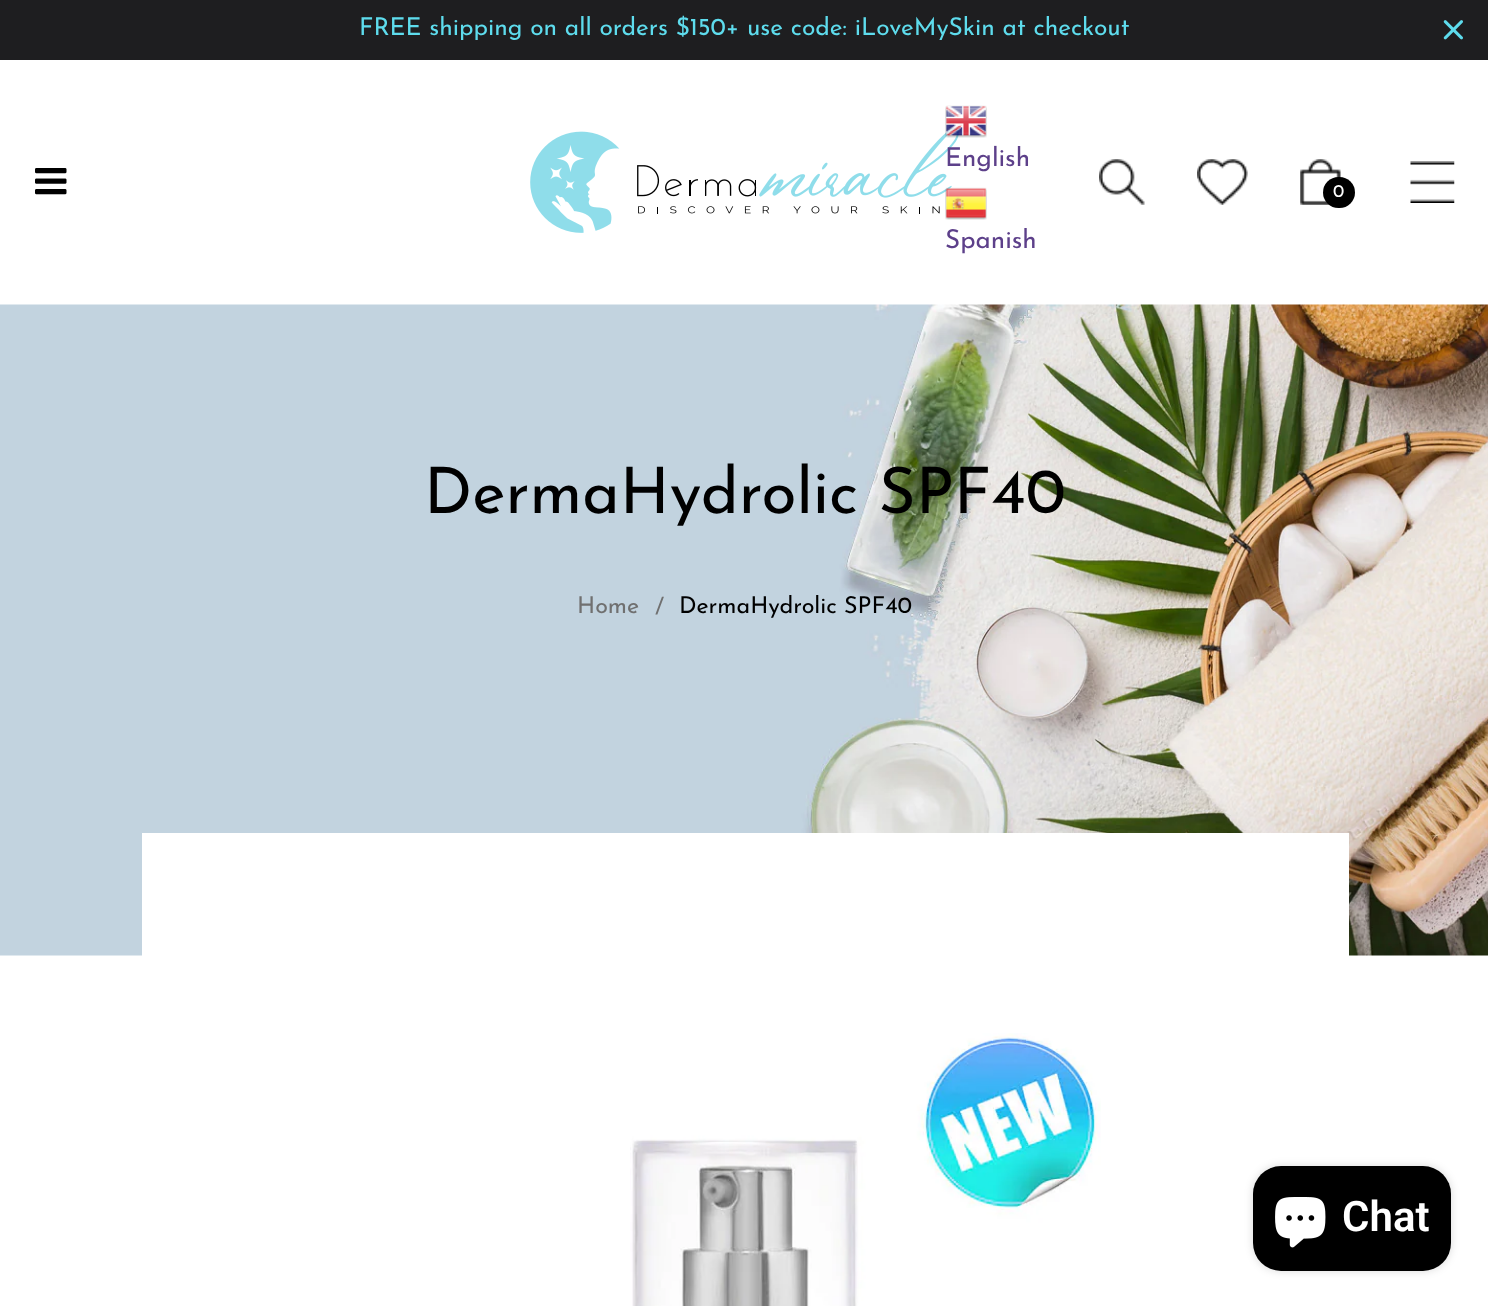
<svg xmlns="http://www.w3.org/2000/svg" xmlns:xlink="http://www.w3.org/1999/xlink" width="1488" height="1306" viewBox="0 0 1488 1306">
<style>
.cls-1{font:24.5px Josefin Sans;fill:#5edced}
.cls-2{font:26px Josefin Sans;fill:#5d408a}
.cls-3{font:18px Josefin Sans;fill:#ffffff}
.cls-4{font:64px Josefin Sans;fill:#000000}
.cls-5{font:23.25px Josefin Sans;fill:#707070}
.cls-6{font:23.25px Josefin Sans;fill:#000000}
.cls-7{font:600 42px Roboto;fill:#ffffff}
</style>
<rect width="100%" height="100%" fill="#ffffff"/>
<rect fill="#1e1e20" x="0" y="0" width="1488" height="60"/>
<image xlink:href="image0.png" x="1443" y="20" width="20" height="20"/>
<image xlink:href="image1.png" x="35" y="168" width="32" height="27"/>
<image xlink:href="image2.png" x="530" y="128" width="429" height="105"/>
<image xlink:href="image3.png" x="945" y="105" width="42" height="33"/>
<image xlink:href="image4.png" x="945" y="187" width="42" height="33"/>
<image xlink:href="image5.png" x="1099" y="159" width="46" height="46"/>
<image xlink:href="image6.png" x="1197" y="159" width="51" height="46"/>
<image xlink:href="image7.png" x="1300" y="159" width="41" height="46"/>
<rect fill="#000000" x="1323" y="177" width="32" height="31" rx="15.5"/>
<image xlink:href="image8.png" x="1410" y="161" width="45" height="42"/>
<image xlink:href="image9.png" x="0" y="304" width="1488" height="652"/>
<rect fill="#ffffff" x="142" y="833" width="1207" height="123"/>
<image xlink:href="image10.png" x="630" y="1033" width="471" height="273"/>
<rect fill="#000000" fill-opacity="0.15" filter="blur(4.5px)" x="1253" y="1166" width="198" height="105" rx="28"/>
<rect fill="#000000" x="1253" y="1166" width="198" height="105" rx="28"/>
<image xlink:href="image11.png" x="1275" y="1197" width="51" height="51"/>
<text class="cls-1" x="359" y="35">FREE shipping on all orders $150+ use code: iLoveMySkin at checkout</text>
<text class="cls-2" x="945" y="166">English</text>
<text class="cls-2" x="945" y="248">Spanish</text>
<text class="cls-3" x="1333" y="197">0</text>
<text class="cls-4" x="424" y="513">DermaHydrolic SPF40</text>
<text class="cls-5" x="577" y="613">Home</text>
<text class="cls-5" x="655" y="614">/</text>
<text class="cls-6" x="679" y="613">DermaHydrolic SPF40</text>
<text class="cls-7" x="1342" y="1231">Chat</text>
</svg>
